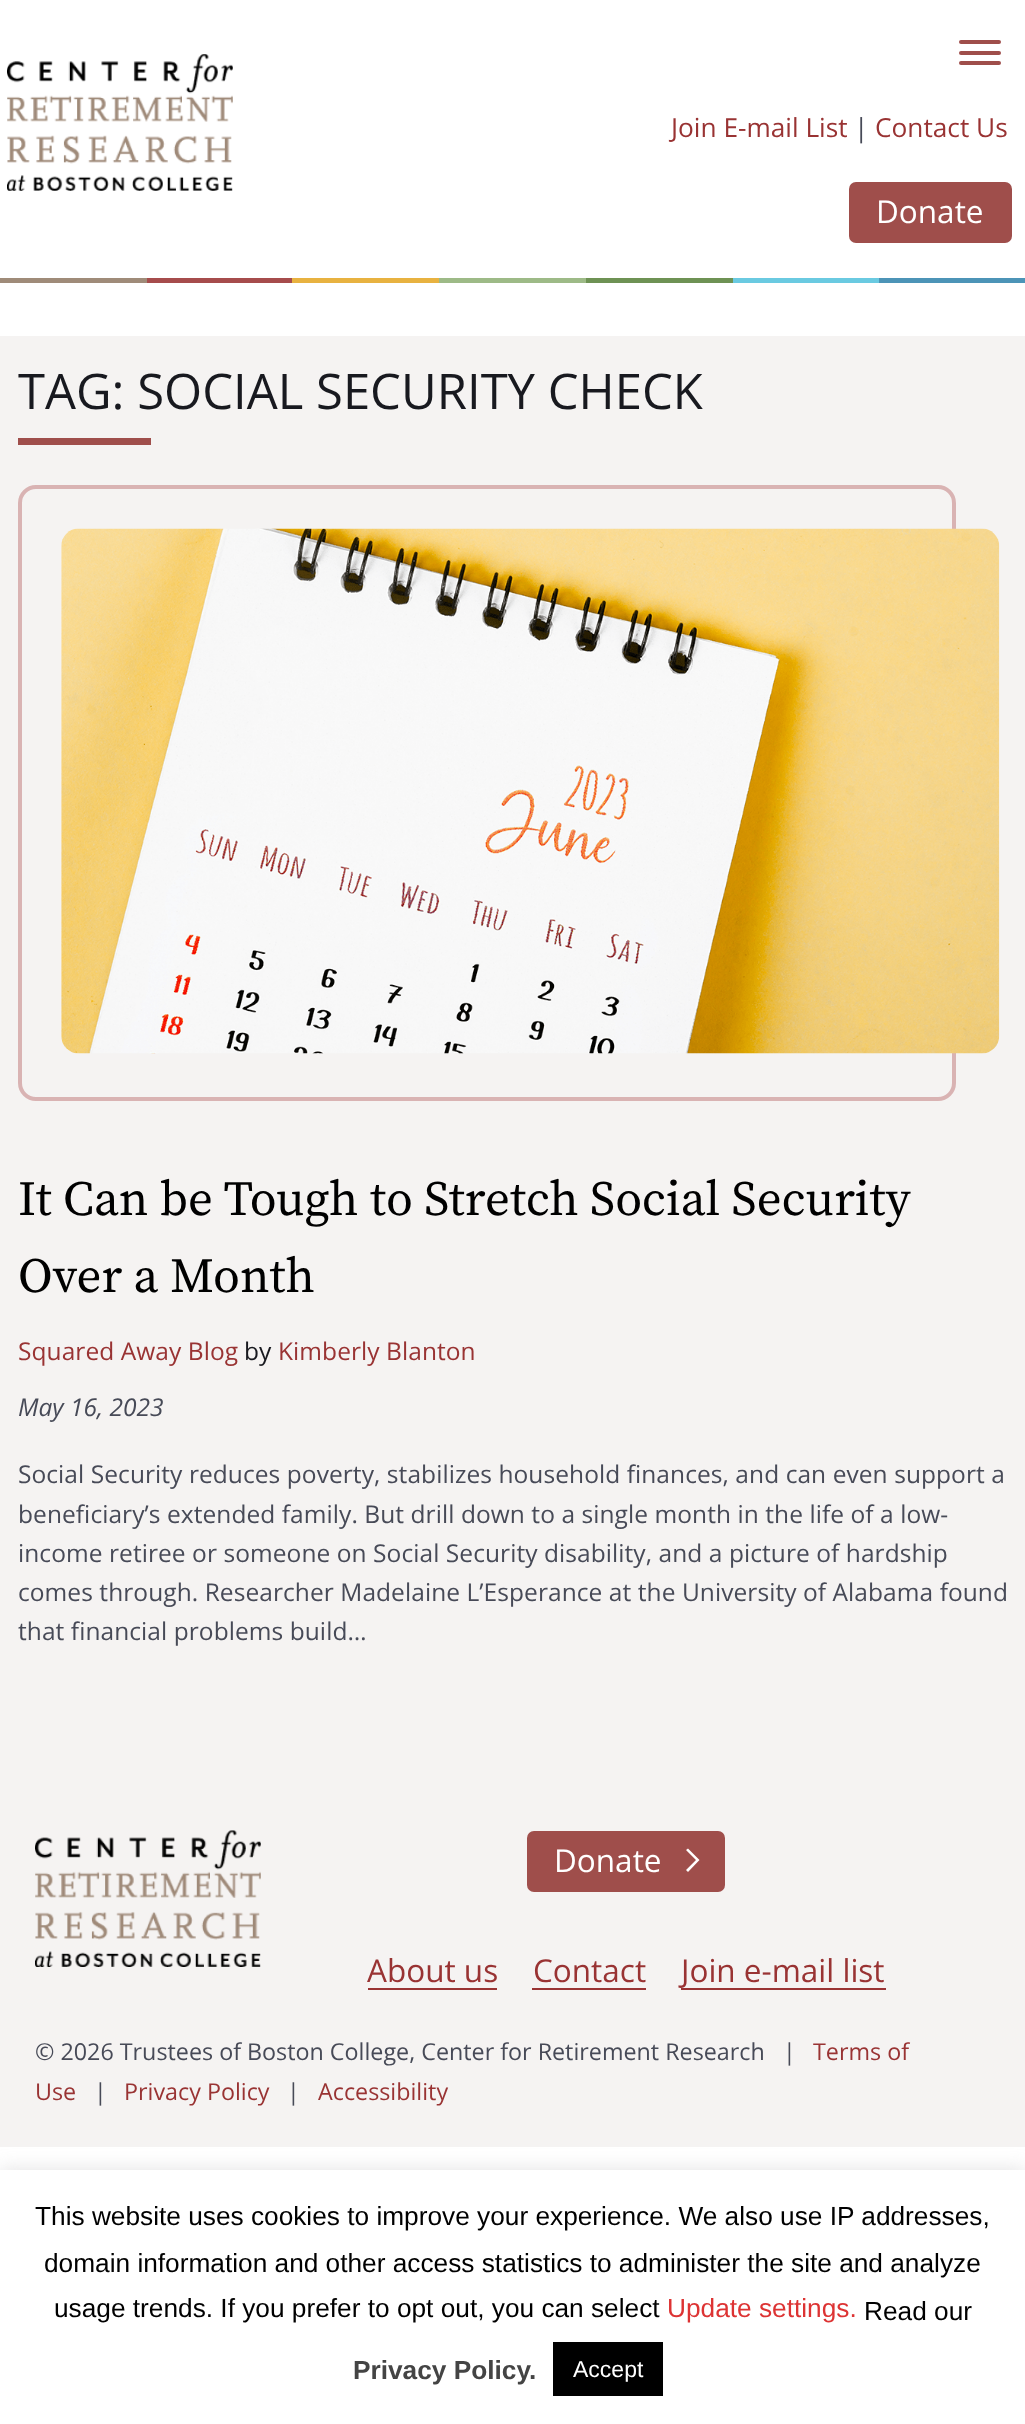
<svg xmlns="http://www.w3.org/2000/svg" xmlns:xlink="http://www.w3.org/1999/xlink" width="1025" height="2424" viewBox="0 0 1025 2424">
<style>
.cls-1{font:26.25px Open Sans;fill:#993333}
.cls-2{font:26.25px Open Sans;fill:#474a57}
.cls-3{font:31.5px Open Sans;fill:#ffffff}
.cls-4{font:49px Open Sans;fill:#18191f}
.cls-5{font:49px Source Serif Pro;fill:#000000}
.cls-6{font:24.5px Open Sans;letter-spacing:0.07px;fill:#993333}
.cls-7{font:24.5px Open Sans;letter-spacing:0.07px;fill:#18191f}
.cls-8{font:italic 24.5px Open Sans;fill:#474a57}
.cls-9{font:24.5px Open Sans;letter-spacing:0.07px;fill:#474a57}
.cls-10{font:31.5px Open Sans;fill:#993333}
.cls-11{font:23.3px Open Sans;fill:#474a57}
.cls-12{font:23.3px Open Sans;fill:#993333}
.cls-13{font:26.25px Liberation Sans;fill:#000000}
.cls-14{font:26.25px Liberation Sans;fill:#dd3333}
.cls-15{font:bold 26.25px Liberation Sans;fill:#444444}
.cls-16{font:23px Liberation Sans;fill:#ffffff}
</style>
<rect width="100%" height="100%" fill="#ffffff"/>
<rect fill="#9f4e4b" x="959" y="40" width="42" height="4" rx="2"/>
<rect fill="#9f4e4b" x="959" y="51" width="42" height="4" rx="2"/>
<rect fill="#9f4e4b" x="959" y="61" width="42" height="4" rx="2"/>
<image xlink:href="image0.png" x="7" y="54" width="226" height="137"/>
<rect fill="#9f4e4b" x="849" y="182" width="163" height="61" rx="7"/>
<rect fill="#9f8b79" x="0" y="278" width="147" height="5"/>
<rect fill="#a64c4c" x="147" y="278" width="145" height="5"/>
<rect fill="#e8b240" x="292" y="278" width="147" height="5"/>
<rect fill="#9dba87" x="439" y="278" width="147" height="5"/>
<rect fill="#6e9254" x="586" y="278" width="147" height="5"/>
<rect fill="#6acae1" x="733" y="278" width="146" height="5"/>
<rect fill="#4c94b7" x="879" y="278" width="146" height="5"/>
<rect fill="#f5f3f2" x="0" y="336" width="1025" height="1811"/>
<rect fill="#9f4e4b" x="18" y="438" width="133" height="7"/>
<rect fill="none" stroke="#d9b3b3" stroke-width="4" x="20" y="487" width="934" height="612" rx="16"/>
<image xlink:href="image1.png" x="61" y="528" width="939" height="526"/>
<image xlink:href="image2.png" x="35" y="1830" width="226" height="137"/>
<rect fill="#9f4e4b" x="527" y="1831" width="198" height="61" rx="7"/>
<path fill="#ffffff" d="M688 1872L686 1870L696 1860L686 1850L688 1848.5L699.5 1860Z"/>
<rect fill="#993333" x="368" y="1988" width="129" height="2"/>
<rect fill="#993333" x="532" y="1988" width="114" height="2"/>
<rect fill="#993333" x="681" y="1988" width="205" height="2"/>
<rect fill="#acabab" fill-opacity="0.3" filter="blur(9px)" x="0" y="2168" width="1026" height="256"/>
<rect fill="#ffffff" x="0" y="2170" width="1025" height="254"/>
<rect fill="#000000" x="553" y="2342" width="110" height="54"/>
<text class="cls-1" x="671" y="137">Join E-mail List</text>
<text class="cls-2" x="854" y="137">|</text>
<text class="cls-1" x="875" y="137">Contact Us</text>
<text class="cls-3" x="876" y="223">Donate</text>
<text class="cls-4" x="18" y="409">TAG: SOCIAL SECURITY CHECK</text>
<text class="cls-5"><tspan x="18" y="1215">It Can be Tough to Stretch Social Security</tspan><tspan x="18" y="1292">Over a Month</tspan></text>
<text class="cls-6" x="18" y="1360">Squared Away Blog</text>
<text class="cls-7" x="244" y="1360">by</text>
<text class="cls-6" x="278" y="1360">Kimberly Blanton</text>
<text class="cls-8" x="18" y="1416">May 16, 2023</text>
<text class="cls-9"><tspan x="18" y="1483">Social Security reduces poverty, stabilizes household finances, and can even support a</tspan><tspan x="18" y="1523">beneficiary’s extended family. But drill down to a single month in the life of a low-</tspan><tspan x="18" y="1562">income retiree or someone on Social Security disability, and a picture of hardship</tspan><tspan x="18" y="1601">comes through. Researcher Madelaine L’Esperance at the University of Alabama found</tspan><tspan x="18" y="1640">that financial problems build…</tspan></text>
<text class="cls-3" x="554" y="1872">Donate</text>
<text class="cls-10" x="367" y="1982">About us</text>
<text class="cls-10" x="533" y="1982">Contact</text>
<text class="cls-10" x="681" y="1982">Join e-mail list</text>
<text class="cls-11" x="35" y="2060">© 2026 Trustees of Boston College, Center for Retirement Research</text>
<text class="cls-11" x="783" y="2060">|</text>
<text class="cls-12" x="813" y="2060">Terms of</text>
<text class="cls-12" x="35" y="2100">Use</text>
<text class="cls-11" x="94" y="2100">|</text>
<text class="cls-12" x="124" y="2100">Privacy Policy</text>
<text class="cls-11" x="287" y="2100">|</text>
<text class="cls-12" x="318" y="2100">Accessibility</text>
<text class="cls-13" x="35" y="2225">This website uses cookies to improve your experience. We also use IP addresses,</text>
<text class="cls-13" x="44" y="2272">domain information and other access statistics to administer the site and analyze</text>
<text class="cls-13" x="54" y="2317">usage trends. If you prefer to opt out, you can select</text>
<text class="cls-14" x="667" y="2317">Update settings.</text>
<text class="cls-13" x="864" y="2320">Read our</text>
<text class="cls-15" x="353" y="2379">Privacy Policy.</text>
<text class="cls-16" x="573" y="2377">Accept</text>
</svg>
